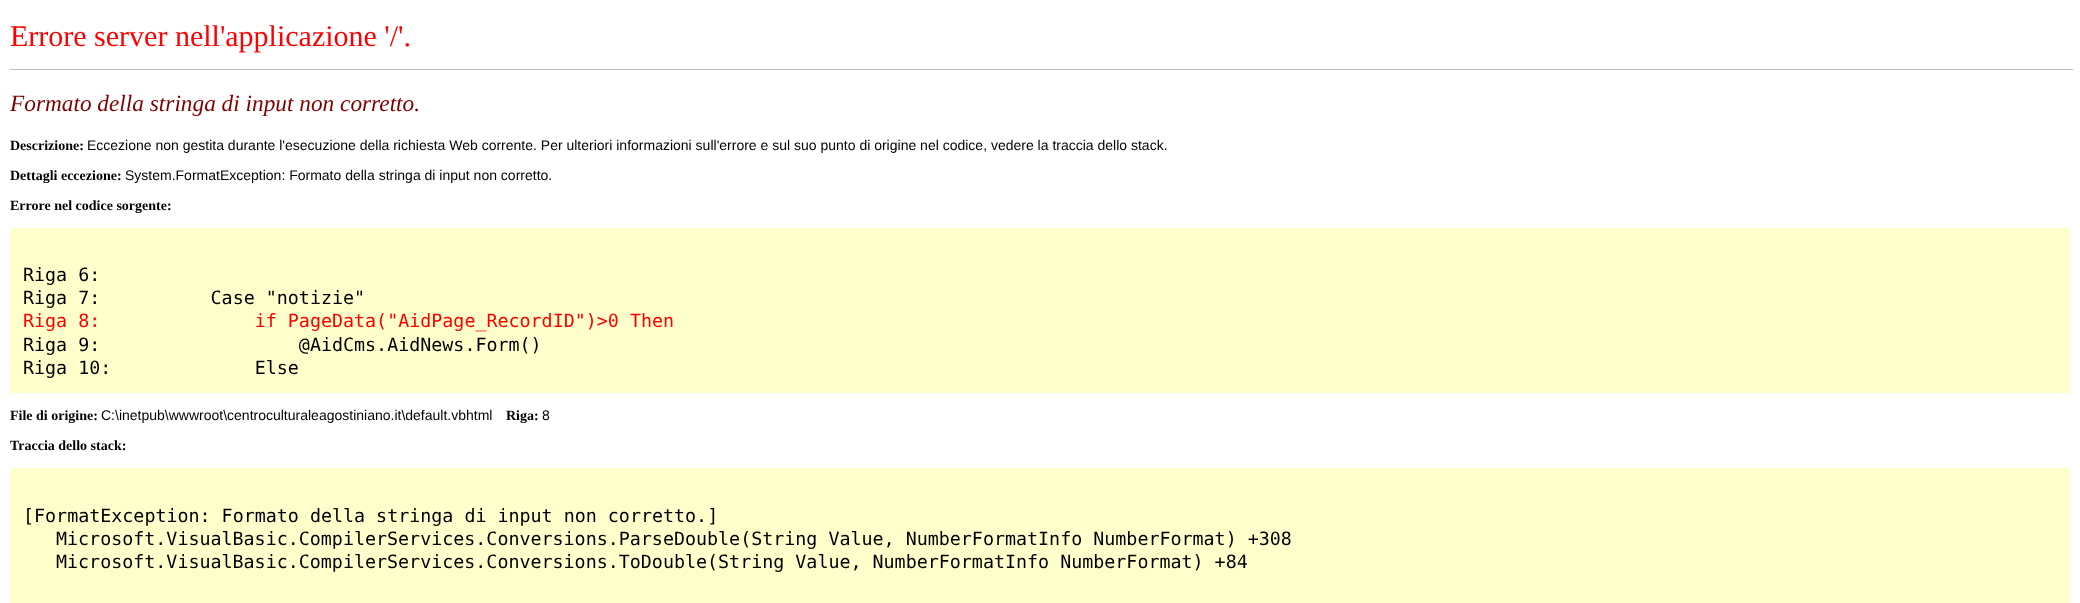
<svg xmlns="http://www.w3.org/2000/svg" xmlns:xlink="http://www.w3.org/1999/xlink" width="2080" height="603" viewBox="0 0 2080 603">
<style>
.cls-1{font:30px Liberation Serif;fill:#ff0000}
.cls-2{font:italic 23.3px Liberation Serif;fill:#800000}
.cls-3{font:bold 14px Liberation Serif;fill:#000000}
.cls-4{font:14px Liberation Sans;fill:#000000}
.cls-5{font:18.33px DejaVu Sans Mono;fill:#000000}
.cls-6{font:18.33px DejaVu Sans Mono;fill:#ff0000}
</style>
<rect width="100%" height="100%" fill="#ffffff"/>
<rect fill="#c0c0c0" x="10" y="69" width="2063" height="1"/>
<rect fill="#ffffcc" x="10" y="228" width="2060" height="165"/>
<rect fill="#ffffcc" x="10" y="468" width="2060" height="135"/>
<text class="cls-1" x="10" y="46">Errore server nell'applicazione '/'.</text>
<text class="cls-2" x="10" y="111">Formato della stringa di input non corretto.</text>
<text class="cls-3" x="10" y="150">Descrizione:</text>
<text class="cls-4" x="87" y="150">Eccezione non gestita durante l'esecuzione della richiesta Web corrente. Per ulteriori informazioni sull'errore e sul suo punto di origine nel codice, vedere la traccia dello stack.</text>
<text class="cls-3" x="10" y="180">Dettagli eccezione:</text>
<text class="cls-4" x="125" y="180">System.FormatException: Formato della stringa di input non corretto.</text>
<text class="cls-3" x="10" y="210">Errore nel codice sorgente:</text>
<text class="cls-5" xml:space="preserve"><tspan x="23" y="281">Riga 6:</tspan><tspan x="23" y="304">Riga 7:          Case "notizie"</tspan></text>
<text class="cls-6" xml:space="preserve" x="23" y="327">Riga 8:              if PageData("AidPage_RecordID")&gt;0 Then</text>
<text class="cls-5" xml:space="preserve"><tspan x="23" y="351">Riga 9:                  @AidCms.AidNews.Form()</tspan><tspan x="23" y="374">Riga 10:             Else</tspan></text>
<text class="cls-3" x="10" y="420">File di origine:</text>
<text class="cls-4" x="101" y="420">C:\inetpub\wwwroot\centroculturaleagostiniano.it\default.vbhtml</text>
<text class="cls-3" x="506" y="420">Riga:</text>
<text class="cls-4" x="542" y="420">8</text>
<text class="cls-3" x="10" y="450">Traccia dello stack:</text>
<text class="cls-5" x="23" y="522">[FormatException: Formato della stringa di input non corretto.]</text>
<text class="cls-5"><tspan x="56" y="545">Microsoft.VisualBasic.CompilerServices.Conversions.ParseDouble(String Value, NumberFormatInfo NumberFormat) +308</tspan><tspan x="56" y="568">Microsoft.VisualBasic.CompilerServices.Conversions.ToDouble(String Value, NumberFormatInfo NumberFormat) +84</tspan></text>
</svg>
